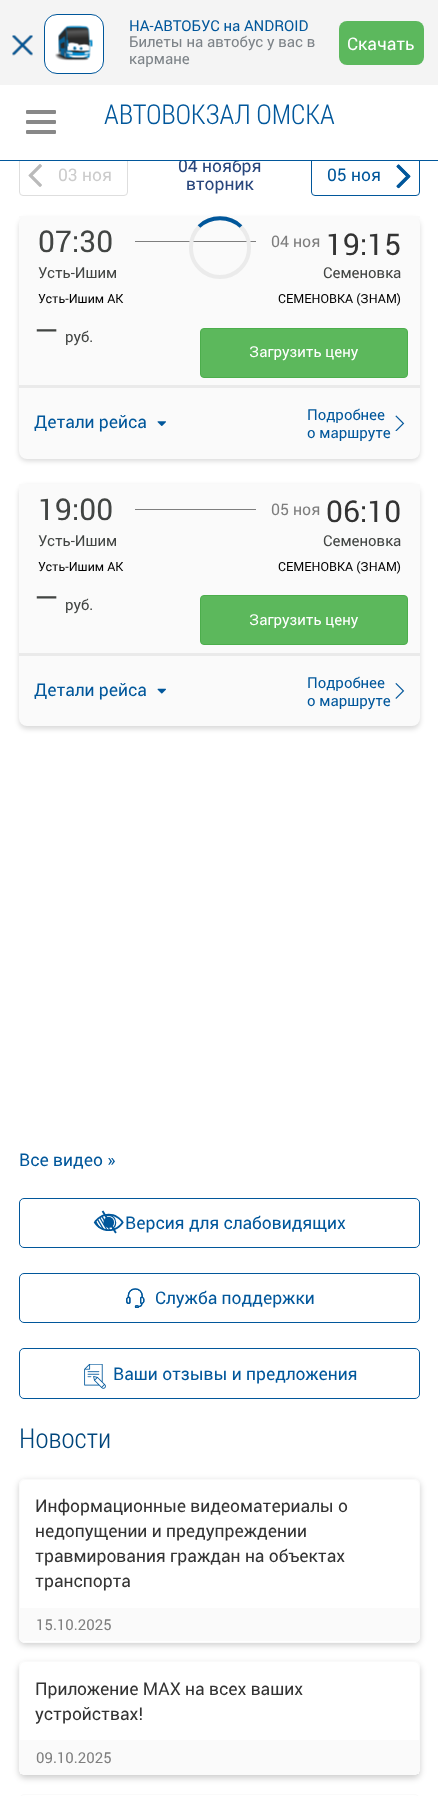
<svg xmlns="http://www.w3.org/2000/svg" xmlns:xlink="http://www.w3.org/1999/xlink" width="438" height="1796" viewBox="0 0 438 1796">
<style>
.cls-1{font:15px Roboto;fill:#01579b}
.cls-2{font:15px Roboto;fill:#7d8388}
.cls-3{font:17.5px Roboto;fill:#ffffff}
.cls-4{font:300 27.5px Roboto Condensed;fill:#01579b}
.cls-5{font:17.5px Roboto;fill:#cccccc}
.cls-6{font:17.5px Roboto;fill:#28467c}
.cls-7{font:17.5px Roboto;fill:#01579b}
.cls-8{font:30px Roboto;fill:#424543}
.cls-9{font:15px Roboto;fill:#424543}
.cls-10{font:12.5px Roboto;fill:#000000}
.cls-11{font:16px Roboto;fill:#7e7e7e}
.cls-12{font:30px Roboto;fill:#333333}
.cls-13{font:15px Roboto;fill:#ffffff}
.cls-14{font:300 27.5px Roboto Condensed;fill:#01467c}
.cls-15{font:17.5px Roboto;fill:#333333}
.cls-16{font:15px Roboto;fill:#7e7e7e}
</style>
<defs>
<clipPath id="clip1"><path d="M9 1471H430V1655H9ZM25 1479H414C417.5 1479 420 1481.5 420 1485V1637C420 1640.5 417.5 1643 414 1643H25C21.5 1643 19 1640.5 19 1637V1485C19 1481.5 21.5 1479 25 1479Z" clip-rule="evenodd"/></clipPath>
<clipPath id="clip2"><path d="M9 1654H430V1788H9ZM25 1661H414C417.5 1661 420 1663.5 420 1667V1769C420 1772.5 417.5 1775 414 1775H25C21.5 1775 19 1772.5 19 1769V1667C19 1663.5 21.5 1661 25 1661Z" clip-rule="evenodd"/></clipPath>
</defs>
<rect width="100%" height="100%" fill="#ffffff"/>
<rect fill="#f4f4f4" x="0" y="0" width="438" height="85"/>
<image xlink:href="image0.png" x="12" y="35" width="21" height="21"/>
<rect fill="#ffffff" stroke="#00579b" x="44.5" y="14.5" width="59" height="59" rx="12.5"/>
<image xlink:href="image1.png" x="55" y="25" width="38" height="36"/>
<rect fill="#5cb85d" x="339" y="21" width="85" height="44" rx="8"/>
<rect fill="#888888" x="26" y="110" width="30" height="4" rx="1"/>
<rect fill="#888888" x="26" y="120" width="30" height="4" rx="1"/>
<rect fill="#888888" x="26" y="130" width="30" height="4" rx="1"/>
<rect fill="none" stroke="#dedede" x="19.5" y="154.5" width="108" height="41" rx="3.5"/>
<image xlink:href="image2.png" x="28" y="164" width="14" height="23"/>
<image xlink:href="image3.png" x="28" y="164" width="14" height="23"/>
<rect fill="none" stroke="#01579b" x="311.5" y="154.5" width="108" height="41" rx="3.5"/>
<image xlink:href="image4.png" x="396" y="164" width="15" height="25"/>
<image xlink:href="image5.png" x="396" y="164" width="15" height="25"/>
<rect fill="#000000" fill-opacity="0.15" filter="blur(2.5px)" x="19" y="219" width="401" height="242" rx="8"/>
<rect fill="#fafafa" x="19" y="216" width="401" height="243" rx="8"/>
<rect fill="#fafafa" x="19" y="216" width="401" height="2"/>
<rect fill="#7e7e7e" x="135" y="241" width="121" height="1"/>
<rect fill="none" stroke="#ebebeb" stroke-width="4" x="191" y="218" width="58" height="59" rx="29"/>
<path fill="none" stroke="#01579b" stroke-width="3.8" d="M199 226.5C210.5 215.5 229.5 215.5 241 226.5"/>
<rect fill="#eaeaea" x="19" y="385" width="401" height="3"/>
<image xlink:href="image6.png" x="157" y="421" width="9" height="5"/>
<image xlink:href="image7.png" x="395" y="415" width="10" height="16"/>
<rect fill="#5cb85c" stroke="#4cae4c" x="200.5" y="328.5" width="207" height="49" rx="3.5"/>
<rect fill="#000000" fill-opacity="0.15" filter="blur(2.5px)" x="19" y="486" width="401" height="243" rx="8"/>
<rect fill="#fafafa" x="19" y="484" width="401" height="242" rx="8"/>
<rect fill="#fafafa" x="19" y="484" width="401" height="6"/>
<rect fill="#7e7e7e" x="135" y="509" width="121" height="1"/>
<rect fill="#eaeaea" x="19" y="653" width="401" height="3"/>
<image xlink:href="image8.png" x="157" y="688" width="9" height="6"/>
<image xlink:href="image9.png" x="395" y="683" width="10" height="16"/>
<rect fill="#5cb85c" stroke="#4cae4c" x="200.5" y="595.5" width="207" height="49" rx="3.5"/>
<rect fill="none" stroke="#01579b" x="19.5" y="1198.5" width="400" height="49" rx="4.5"/>
<image xlink:href="image10.png" x="93" y="1210" width="31" height="24"/>
<rect fill="none" stroke="#01579b" x="19.5" y="1273.5" width="400" height="49" rx="4.5"/>
<image xlink:href="image11.png" x="126" y="1288" width="19" height="20"/>
<rect fill="none" stroke="#01579b" x="19.5" y="1348.5" width="400" height="50" rx="4.5"/>
<image xlink:href="image12.png" x="84" y="1364" width="22" height="25"/>
<g clip-path="url(#clip1)">
<rect fill="#000000" fill-opacity="0.2" filter="blur(3px)" x="19" y="1481" width="401" height="164" rx="6"/>
</g>
<rect fill="none" stroke="#fafafa" x="19.5" y="1479.5" width="400" height="163" rx="5.5"/>
<rect fill="#fafafa" x="20" y="1608" width="399" height="33"/>
<g clip-path="url(#clip2)">
<rect fill="#000000" fill-opacity="0.2" filter="blur(3px)" x="19" y="1664" width="401" height="114" rx="6"/>
</g>
<rect fill="none" stroke="#fafafa" x="19.5" y="1661.5" width="400" height="113" rx="5.5"/>
<rect fill="#fafafa" x="20" y="1740" width="399" height="34"/>
<rect fill="none" stroke="#fafafa" x="19.5" y="1794.5" width="400" height="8" rx="5.5"/>
<text class="cls-1" x="129" y="31">НА-АВТОБУС на ANDROID</text>
<text class="cls-2"><tspan x="129" y="47">Билеты на автобус у вас в</tspan><tspan x="129" y="64">кармане</tspan></text>
<text class="cls-3" x="347" y="50">Скачать</text>
<text class="cls-4" x="104" y="124">АВТОВОКЗАЛ ОМСКА</text>
<text class="cls-5" x="58" y="181">03 ноя</text>
<text class="cls-6" x="178" y="172">04 ноября</text>
<rect fill="#01579b" x="0" y="160" width="438" height="1"/>
<rect fill="#ffffff" x="19" y="154" width="401" height="6"/>
<text class="cls-6" x="186" y="190">вторник</text>
<text class="cls-7" x="327" y="181">05 ноя</text>
<text class="cls-8" x="38" y="252">07:30</text>
<text class="cls-9" x="38" y="278">Усть-Ишим</text>
<text class="cls-10" x="38" y="303">Усть-Ишим АК</text>
<text class="cls-11" x="271" y="247">04 ноя</text>
<text class="cls-12" x="326" y="255">19:15</text>
<text class="cls-9" x="323" y="278">Семеновка</text>
<text class="cls-10" x="278" y="303">СЕМЕНОВКА (ЗНАМ)</text>
<text class="cls-7" x="34" y="428">Детали рейса</text>
<text class="cls-1"><tspan x="307" y="420">Подробнее</tspan><tspan x="307" y="438">о маршруте</tspan></text>
<text class="cls-8" x="34" y="341">—</text>
<text class="cls-9" x="65" y="342">руб.</text>
<text class="cls-13" x="249" y="357">Загрузить цену</text>
<text class="cls-8" x="38" y="520">19:00</text>
<text class="cls-9" x="38" y="546">Усть-Ишим</text>
<text class="cls-10" x="38" y="571">Усть-Ишим АК</text>
<text class="cls-11" x="271" y="515">05 ноя</text>
<text class="cls-12" x="326" y="522">06:10</text>
<text class="cls-9" x="323" y="546">Семеновка</text>
<text class="cls-10" x="278" y="571">СЕМЕНОВКА (ЗНАМ)</text>
<text class="cls-7" x="34" y="696">Детали рейса</text>
<text class="cls-1"><tspan x="307" y="688">Подробнее</tspan><tspan x="307" y="706">о маршруте</tspan></text>
<text class="cls-8" x="34" y="608">—</text>
<text class="cls-9" x="65" y="610">руб.</text>
<text class="cls-13" x="249" y="625">Загрузить цену</text>
<text class="cls-7" x="19" y="1166">Все видео »</text>
<text class="cls-7" x="125" y="1229">Версия для слабовидящих</text>
<text class="cls-7" x="155" y="1304">Служба поддержки</text>
<text class="cls-7" x="113" y="1380">Ваши отзывы и предложения</text>
<text class="cls-14" x="19" y="1448">Новости</text>
<text class="cls-15"><tspan x="35" y="1512">Информационные видеоматериалы о</tspan><tspan x="35" y="1537">недопущении и предупреждении</tspan><tspan x="35" y="1562">травмирования граждан на объектах</tspan><tspan x="35" y="1587">транспорта</tspan></text>
<text class="cls-16" x="36" y="1630">15.10.2025</text>
<text class="cls-15"><tspan x="35" y="1695">Приложение MAX на всех ваших</tspan><tspan x="35" y="1720">устройствах!</tspan></text>
<text class="cls-16" x="36" y="1763">09.10.2025</text>
</svg>
